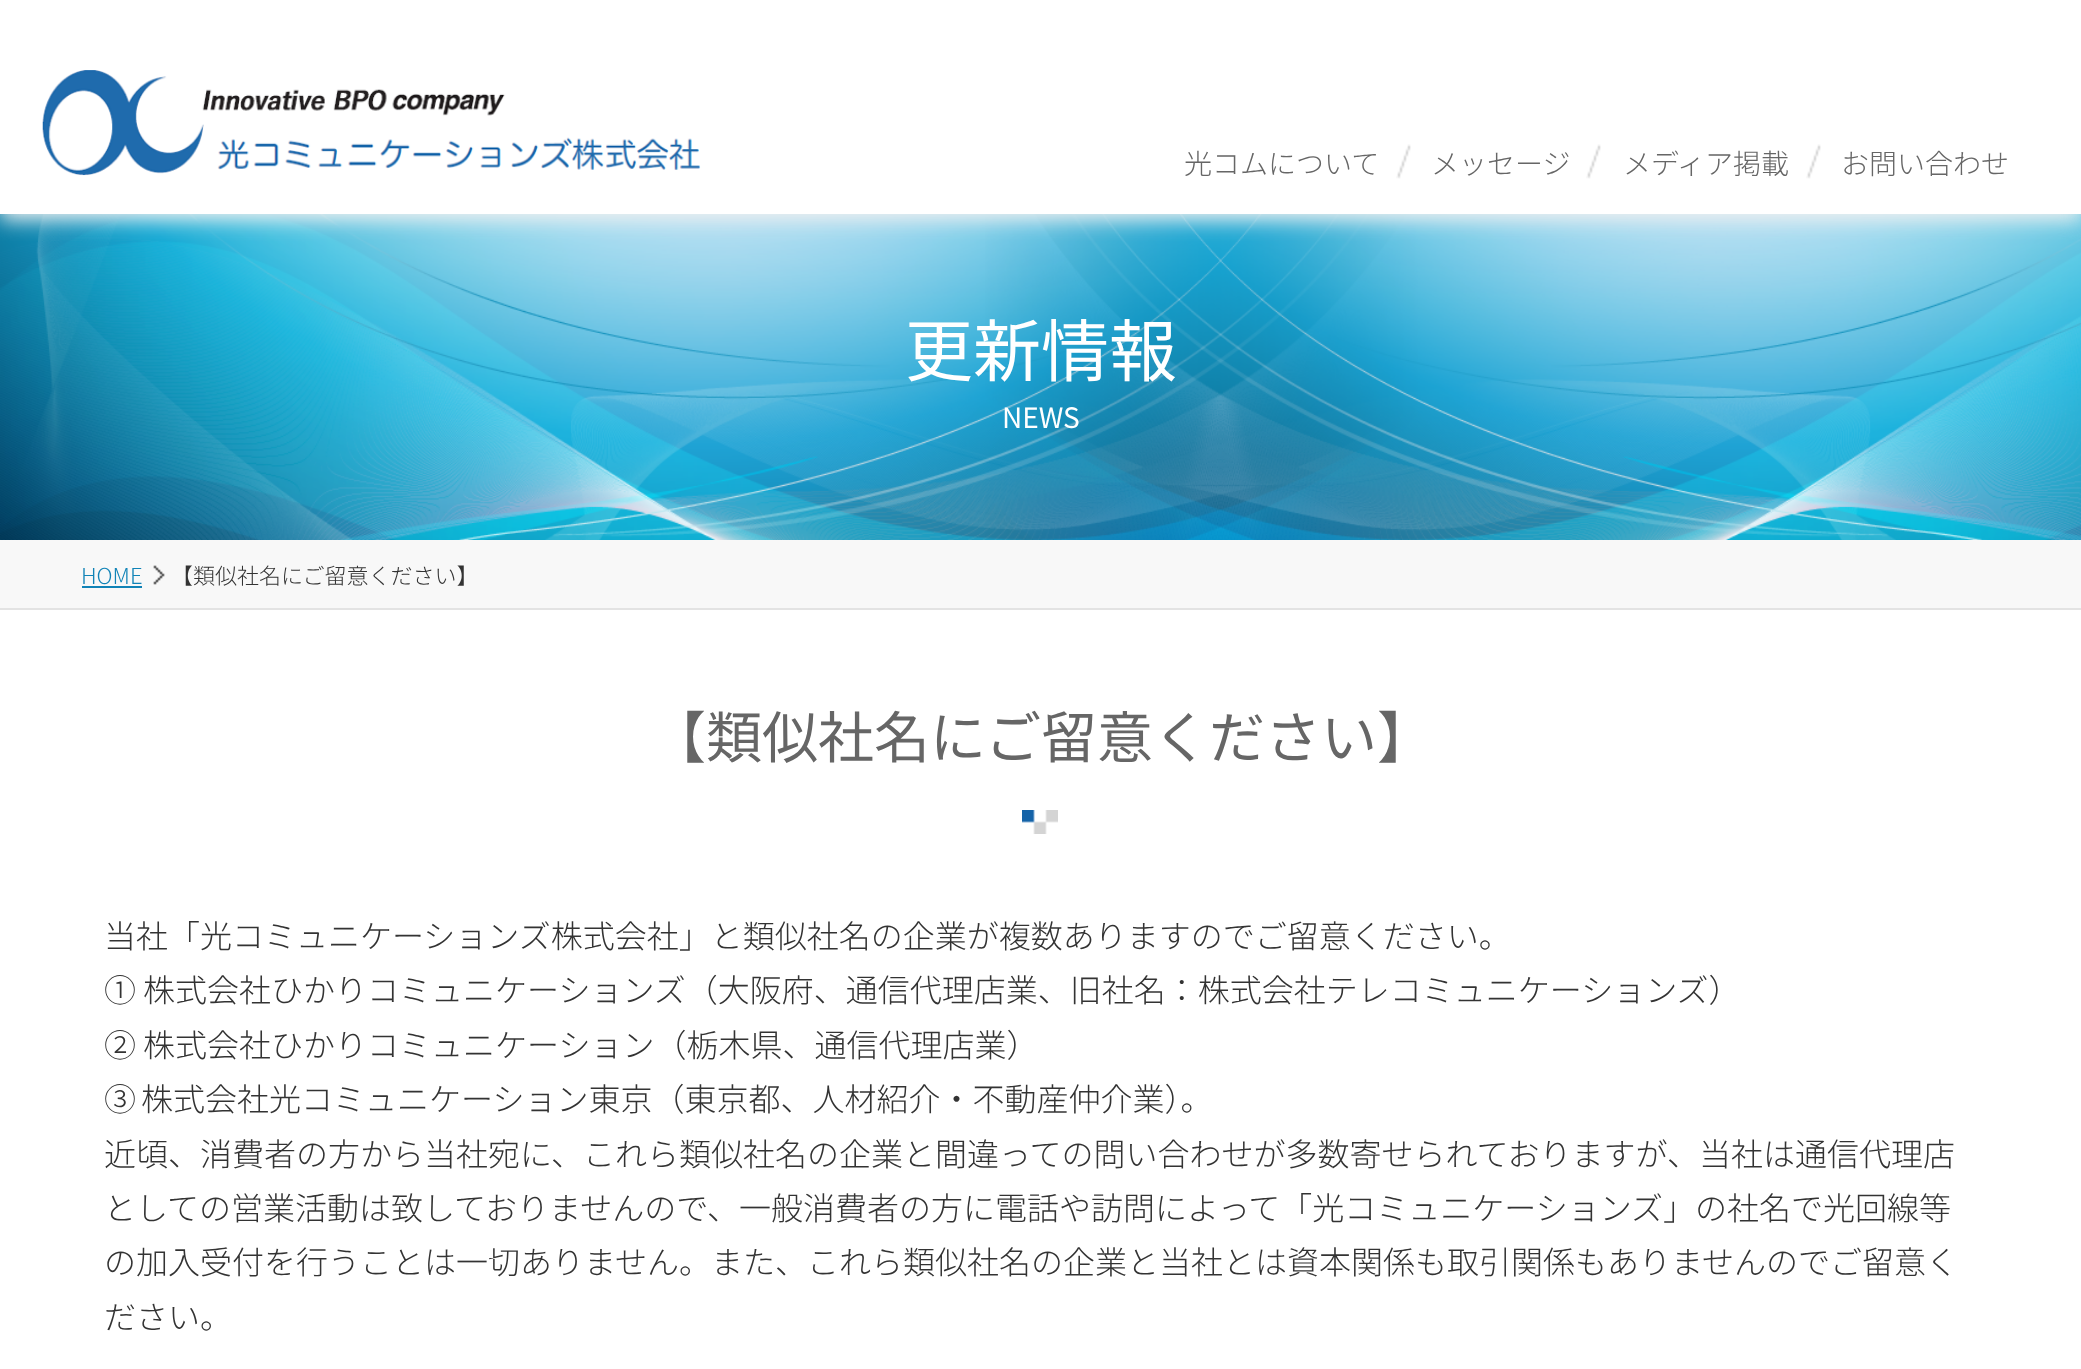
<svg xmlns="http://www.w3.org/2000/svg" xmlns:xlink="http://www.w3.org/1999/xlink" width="2081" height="1369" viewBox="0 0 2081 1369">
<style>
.cls-1{font:300 28px Noto Sans JP;fill:#666666}
.cls-2{font:68px Noto Sans JP;fill:#ffffff}
.cls-3{font:28px Noto Sans JP;fill:#ffffff}
.cls-4{font:300 22px Noto Sans JP;fill:#1083b7}
.cls-5{font:300 22px Noto Sans JP;fill:#333333}
.cls-6{font:56px Noto Sans JP;fill:#666666}
.cls-7{font:300 32px Noto Sans JP;fill:#333333}
</style>
<defs>
<clipPath id="clip1"><rect x="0" y="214" width="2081" height="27"/></clipPath>
</defs>
<rect width="100%" height="100%" fill="#ffffff"/>
<image xlink:href="image2.png" x="0" y="214" width="2081" height="326"/>
<g clip-path="url(#clip1)">
<rect fill="#efefef" filter="blur(10px)" x="0" y="6" width="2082" height="214"/>
</g>
<image xlink:href="image0.png" x="42" y="70" width="659" height="106"/>
<image xlink:href="image1.png" x="1396" y="144" width="15" height="35"/>
<image xlink:href="image1.png" x="1586" y="144" width="15" height="35"/>
<image xlink:href="image1.png" x="1806" y="144" width="15" height="35"/>
<rect fill="#f8f8f8" x="0" y="540" width="2081" height="68"/>
<rect fill="#e3e3e3" x="0" y="608" width="2081" height="2"/>
<rect fill="#1083b7" x="82" y="586" width="60" height="2"/>
<image xlink:href="image3.png" x="153" y="565" width="12" height="20"/>
<image xlink:href="image4.png" x="1022" y="810" width="36" height="24"/>
<text class="cls-1" x="1184" y="174">光コムについて</text>
<text class="cls-1" x="1431" y="174">メッセージ</text>
<text class="cls-1" x="1623" y="174">メディア掲載</text>
<text class="cls-1" x="1841" y="174">お問い合わせ</text>
<text class="cls-2" x="905" y="376">更新情報</text>
<text class="cls-3" x="1002" y="428">NEWS</text>
<text class="cls-4" x="81" y="584">HOME</text>
<text class="cls-5" x="171" y="584">【類似社名にご留意ください】</text>
<text class="cls-6" x="650" y="758">【類似社名にご留意ください】</text>
<text class="cls-7"><tspan x="104" y="948">当社「光コミュニケーションズ株式会社」と類似社名の企業が複数ありますのでご留意ください。</tspan><tspan x="104" y="1002">① 株式会社ひかりコミュニケーションズ（大阪府、通信代理店業、旧社名：株式会社テレコミュニケーションズ）</tspan><tspan x="104" y="1057">② 株式会社ひかりコミュニケーション（栃木県、通信代理店業）</tspan><tspan x="104" y="1111" word-spacing="-2">③ 株式会社光コミュニケーション東京（東京都、人材紹介・不動産仲介業）。</tspan><tspan x="104" y="1166">近頃、消費者の方から当社宛に、これら類似社名の企業と間違っての問い合わせが多数寄せられておりますが、当社は通信代理店</tspan><tspan x="104" y="1220">としての営業活動は致しておりませんので、一般消費者の方に電話や訪問によって「光コミュニケーションズ」の社名で光回線等</tspan><tspan x="104" y="1274">の加入受付を行うことは一切ありません。また、これら類似社名の企業と当社とは資本関係も取引関係もありませんのでご留意く</tspan><tspan x="104" y="1329">ださい。</tspan></text>
</svg>
